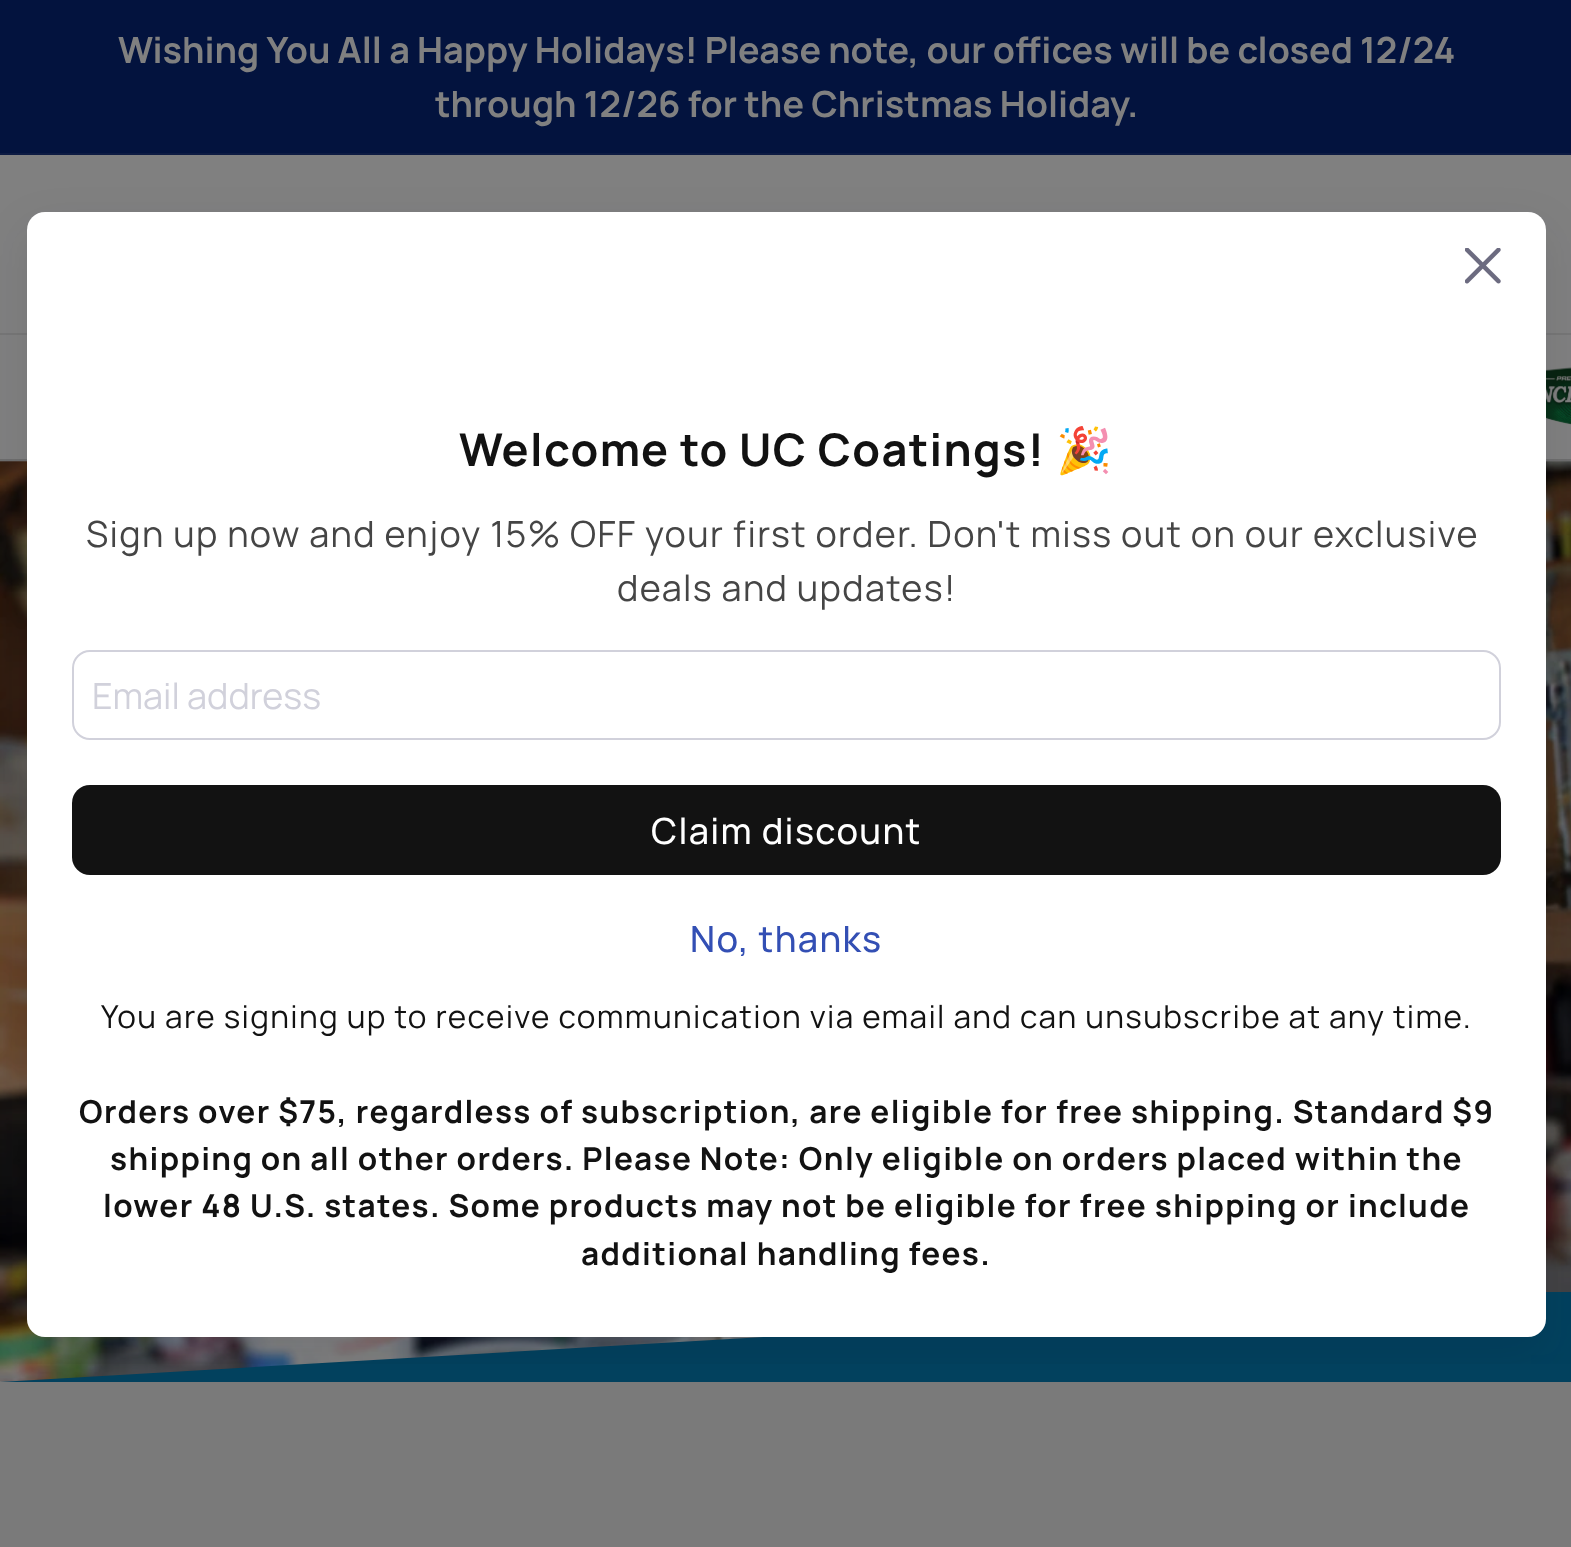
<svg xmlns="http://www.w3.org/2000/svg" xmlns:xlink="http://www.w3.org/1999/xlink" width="1571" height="1547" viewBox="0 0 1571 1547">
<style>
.cls-1{font:bold 36px Manrope;fill:#808080}
.cls-2{font:bold 45px Manrope;letter-spacing:1.35px;fill:#121212}
.cls-3{font:bold 45px Noto Color Emoji;letter-spacing:1.35px;fill:#121212}
.cls-4{font:36px Manrope;letter-spacing:1.35px;fill:#454545}
.cls-5{font:36px Manrope;fill:#d1d1db}
.cls-6{font:500 36px Manrope;letter-spacing:1.35px;fill:#ffffff}
.cls-7{font:500 36px Manrope;letter-spacing:1.35px;fill:#334fb4}
.cls-8{font:31.5px Manrope;letter-spacing:1.35px;fill:#121212}
.cls-9{font:bold 31.5px Manrope;letter-spacing:1.35px;fill:#121212}
</style>
<defs>
<clipPath id="clip1"><rect x="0" y="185" width="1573" height="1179"/></clipPath>
</defs>
<rect width="100%" height="100%" fill="#808080"/>
<rect fill="#03133e" x="0" y="0" width="1571" height="153"/>
<rect fill="#0d1b43" x="0" y="153" width="1571" height="2"/>
<rect fill="#767676" x="0" y="333" width="1571" height="2"/>
<rect fill="#6d6d6d" x="0" y="459" width="1571" height="2"/>
<image xlink:href="image0.png" x="1546" y="367" width="25" height="58"/>
<image xlink:href="image2.png" x="0" y="461" width="1571" height="921"/>
<path fill="#02415e" d="M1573 1382H0L1526 1292H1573Z"/>
<rect fill="#7a7a7a" x="0" y="1382" width="1571" height="165"/>
<g clip-path="url(#clip1)">
<rect fill="#121127" fill-opacity="0.1" filter="blur(22.5px)" x="27" y="230" width="1519" height="1125" rx="18"/>
</g>
<rect fill="#ffffff" x="27" y="212" width="1519" height="1125" rx="18"/>
<image xlink:href="image1.png" x="1465" y="248" width="36" height="36"/>
<rect fill="none" stroke="#d1d1db" stroke-width="2" x="73" y="651" width="1427" height="88" rx="17"/>
<rect fill="#121212" x="72" y="785" width="1429" height="90" rx="18"/>
<text class="cls-1" x="118" y="63">Wishing You All a Happy Holidays! Please note, our offices will be closed 12/24</text>
<text class="cls-1" x="435" y="117">through 12/26 for the Christmas Holiday.</text>
<text class="cls-2" x="459" y="466">Welcome to UC Coatings!</text>
<text class="cls-3" x="1056" y="466">🎉</text>
<text class="cls-4" x="86" y="547">Sign up now and enjoy 15% OFF your first order. Don't miss out on our exclusive</text>
<text class="cls-4" x="617" y="601">deals and updates!</text>
<text class="cls-5" x="92" y="709">Email address</text>
<text class="cls-6" x="651" y="844">Claim discount</text>
<text class="cls-7" x="690" y="952">No, thanks</text>
<text class="cls-8" x="101" y="1028">You are signing up to receive communication via email and can unsubscribe at any time.</text>
<text class="cls-9" x="79" y="1123">Orders over $75, regardless of subscription, are eligible for free shipping. Standard $9</text>
<text class="cls-9" x="110" y="1170">shipping on all other orders. Please Note: Only eligible on orders placed within the</text>
<text class="cls-9" x="103" y="1217">lower 48 U.S. states. Some products may not be eligible for free shipping or include</text>
<text class="cls-9" x="581" y="1265">additional handling fees.</text>
</svg>
